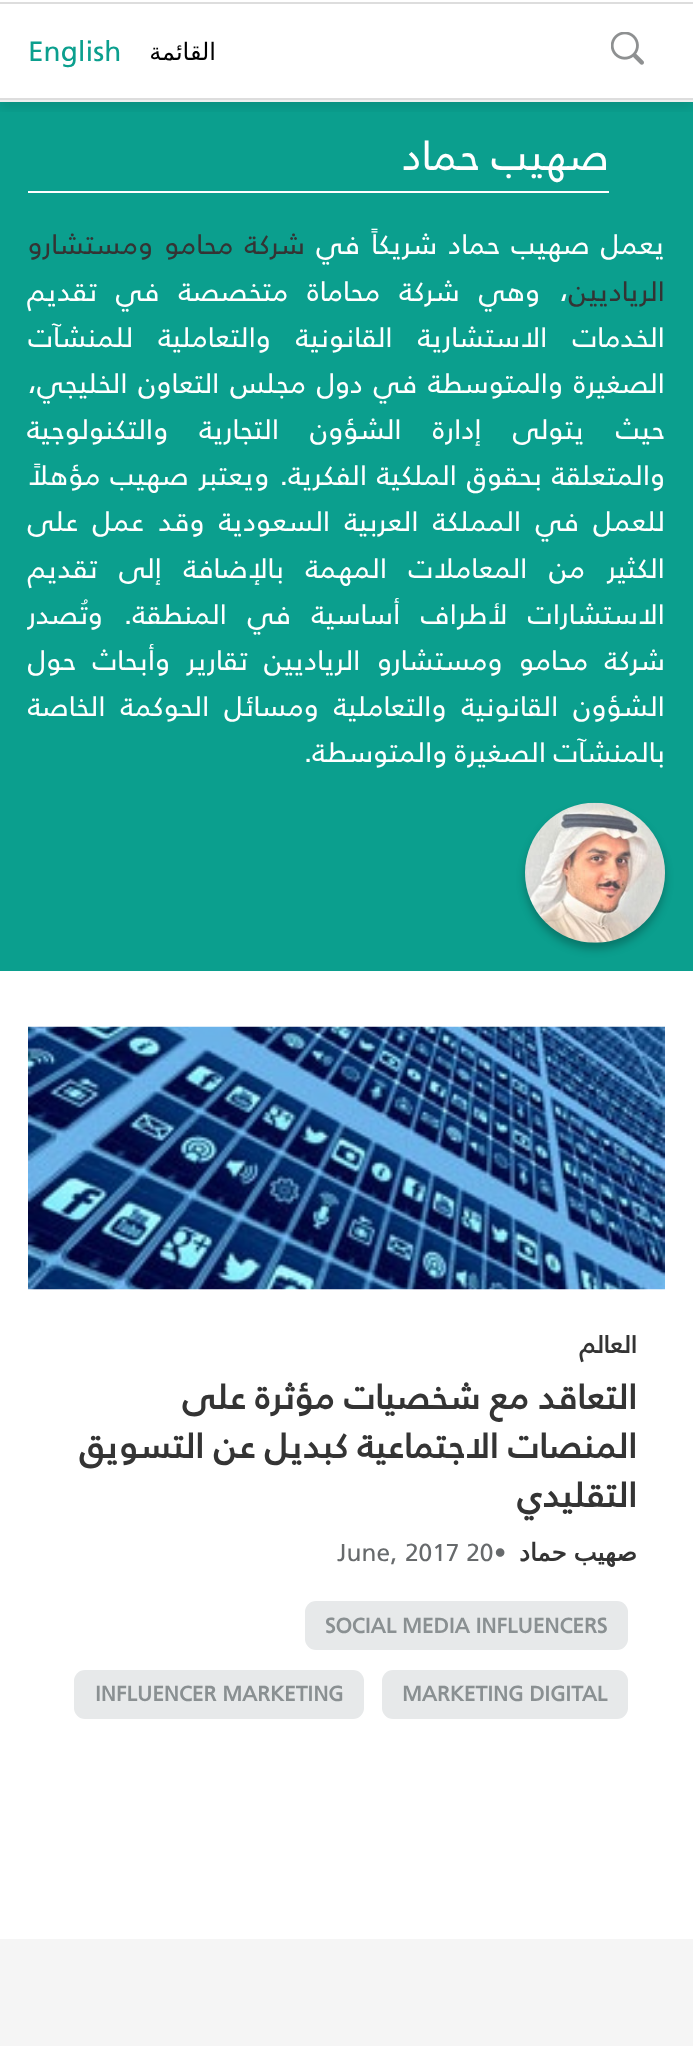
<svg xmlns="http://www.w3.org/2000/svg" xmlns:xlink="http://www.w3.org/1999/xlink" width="693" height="2046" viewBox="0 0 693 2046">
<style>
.cls-1{font:24px DejaVu Sans;direction:rtl;fill:#000000}
.cls-2{font:28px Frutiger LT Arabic;fill:#0b9f8e}
.cls-3{font:42px Frutiger LT Arabic;direction:rtl;fill:#ffffff}
.cls-4{font:28px Frutiger LT Arabic;direction:rtl;fill:#ffffff}
.cls-5{font:28px Frutiger LT Arabic;direction:rtl;fill:#343434}
.cls-6{font:bold 24.5px Frutiger LT Arabic;direction:rtl;fill:#343434}
.cls-7{font:bold 35px Frutiger LT Arabic;direction:rtl;fill:#343434}
.cls-8{font:bold 24.5px DejaVu Sans;direction:rtl;fill:#343434}
.cls-9{font:24.5px Frutiger LT Arabic;fill:#676a6c}
.cls-10{font:bold 21px Frutiger LT Arabic;fill:#8a9092}
</style>
<defs>
<clipPath id="clip1"><rect x="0" y="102" width="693" height="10"/></clipPath>
</defs>
<rect width="100%" height="100%" fill="#ffffff"/>
<rect fill="#0b9f8e" x="0" y="102" width="693" height="869"/>
<g clip-path="url(#clip1)">
<rect fill="#000000" fill-opacity="0.1" filter="blur(6px)" x="0" y="-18" width="693" height="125"/>
</g>
<rect fill="#eeeeee" x="0" y="100" width="693" height="2"/>
<rect fill="#dddddd" x="0" y="2" width="693" height="2"/>
<rect fill="#dddddd" x="0" y="98" width="693" height="2"/>
<image xlink:href="image0.png" x="611" y="32" width="33" height="33"/>
<rect fill="#ffffff" x="28" y="191" width="581" height="2"/>
<rect fill="#000000" fill-opacity="0.25" filter="blur(4.5px)" x="525" y="809" width="140" height="140" rx="70"/>
<image xlink:href="image1.png" x="525" y="802" width="140" height="141"/>
<image xlink:href="image2.png" x="28" y="1026" width="637" height="264"/>
<rect fill="#e7e9ea" x="305" y="1601" width="323" height="49" rx="11"/>
<rect fill="#e7e9ea" x="382" y="1670" width="246" height="49" rx="11"/>
<rect fill="#e7e9ea" x="74" y="1670" width="290" height="49" rx="11"/>
<rect fill="#f5f5f5" x="0" y="1939" width="693" height="107"/>
<text class="cls-1" x="216" y="60">القائمة</text>
<text class="cls-2" x="28" y="61">English</text>
<text class="cls-3" x="609" y="170">صهيب حماد</text>
<text class="cls-4" x="665" y="254" word-spacing="3.5">يعمل صهيب حماد شريكاً في</text>
<text class="cls-5" x="305" y="254" word-spacing="3.5">شركة محامو ومستشارو</text>
<text class="cls-5" x="665" y="301">الرياديين</text>
<text class="cls-4" x="569" y="301" word-spacing="11.5">، وهي شركة محاماة متخصصة في تقديم</text>
<text class="cls-4"><tspan x="665" y="347" word-spacing="17.5">الخدمات الاستشارية القانونية والتعاملية للمنشآت</tspan><tspan x="665" y="393" word-spacing="3.25">الصغيرة والمتوسطة في دول مجلس التعاون الخليجي،</tspan><tspan x="665" y="439" word-spacing="23.5">حيث يتولى إدارة الشؤون التجارية والتكنولوجية</tspan><tspan x="665" y="485" word-spacing="2.25">والمتعلقة بحقوق الملكية الفكرية. ويعتبر صهيب مؤهلاً</tspan><tspan x="665" y="531" word-spacing="6.75">للعمل في المملكة العربية السعودية وقد عمل على</tspan><tspan x="665" y="578" word-spacing="14">الكثير من المعاملات المهمة بالإضافة إلى تقديم</tspan><tspan x="665" y="624" word-spacing="13">الاستشارات لأطراف أساسية في المنطقة. وتُصدر</tspan><tspan x="665" y="670" word-spacing="8.75">شركة محامو ومستشارو الرياديين تقارير وأبحاث حول</tspan><tspan x="665" y="716" word-spacing="7.5">الشؤون القانونية والتعاملية ومسائل الحوكمة الخاصة</tspan><tspan x="665" y="762">بالمنشآت الصغيرة والمتوسطة.</tspan></text>
<text class="cls-6" x="637" y="1353">العالم</text>
<text class="cls-7"><tspan x="637" y="1409">التعاقد مع شخصيات مؤثرة على</tspan><tspan x="637" y="1458">المنصات الاجتماعية كبديل عن التسويق</tspan><tspan x="637" y="1507">التقليدي</tspan></text>
<text class="cls-8" x="637" y="1561" word-spacing="-1">صهيب حماد</text>
<text class="cls-9" x="494" y="1561">•</text>
<text class="cls-9" x="337" y="1561">June, 2017 20</text>
<text class="cls-10" x="325" y="1633">SOCIAL MEDIA INFLUENCERS</text>
<text class="cls-10" x="402" y="1701">MARKETING DIGITAL</text>
<text class="cls-10" x="95" y="1701">INFLUENCER MARKETING</text>
</svg>
